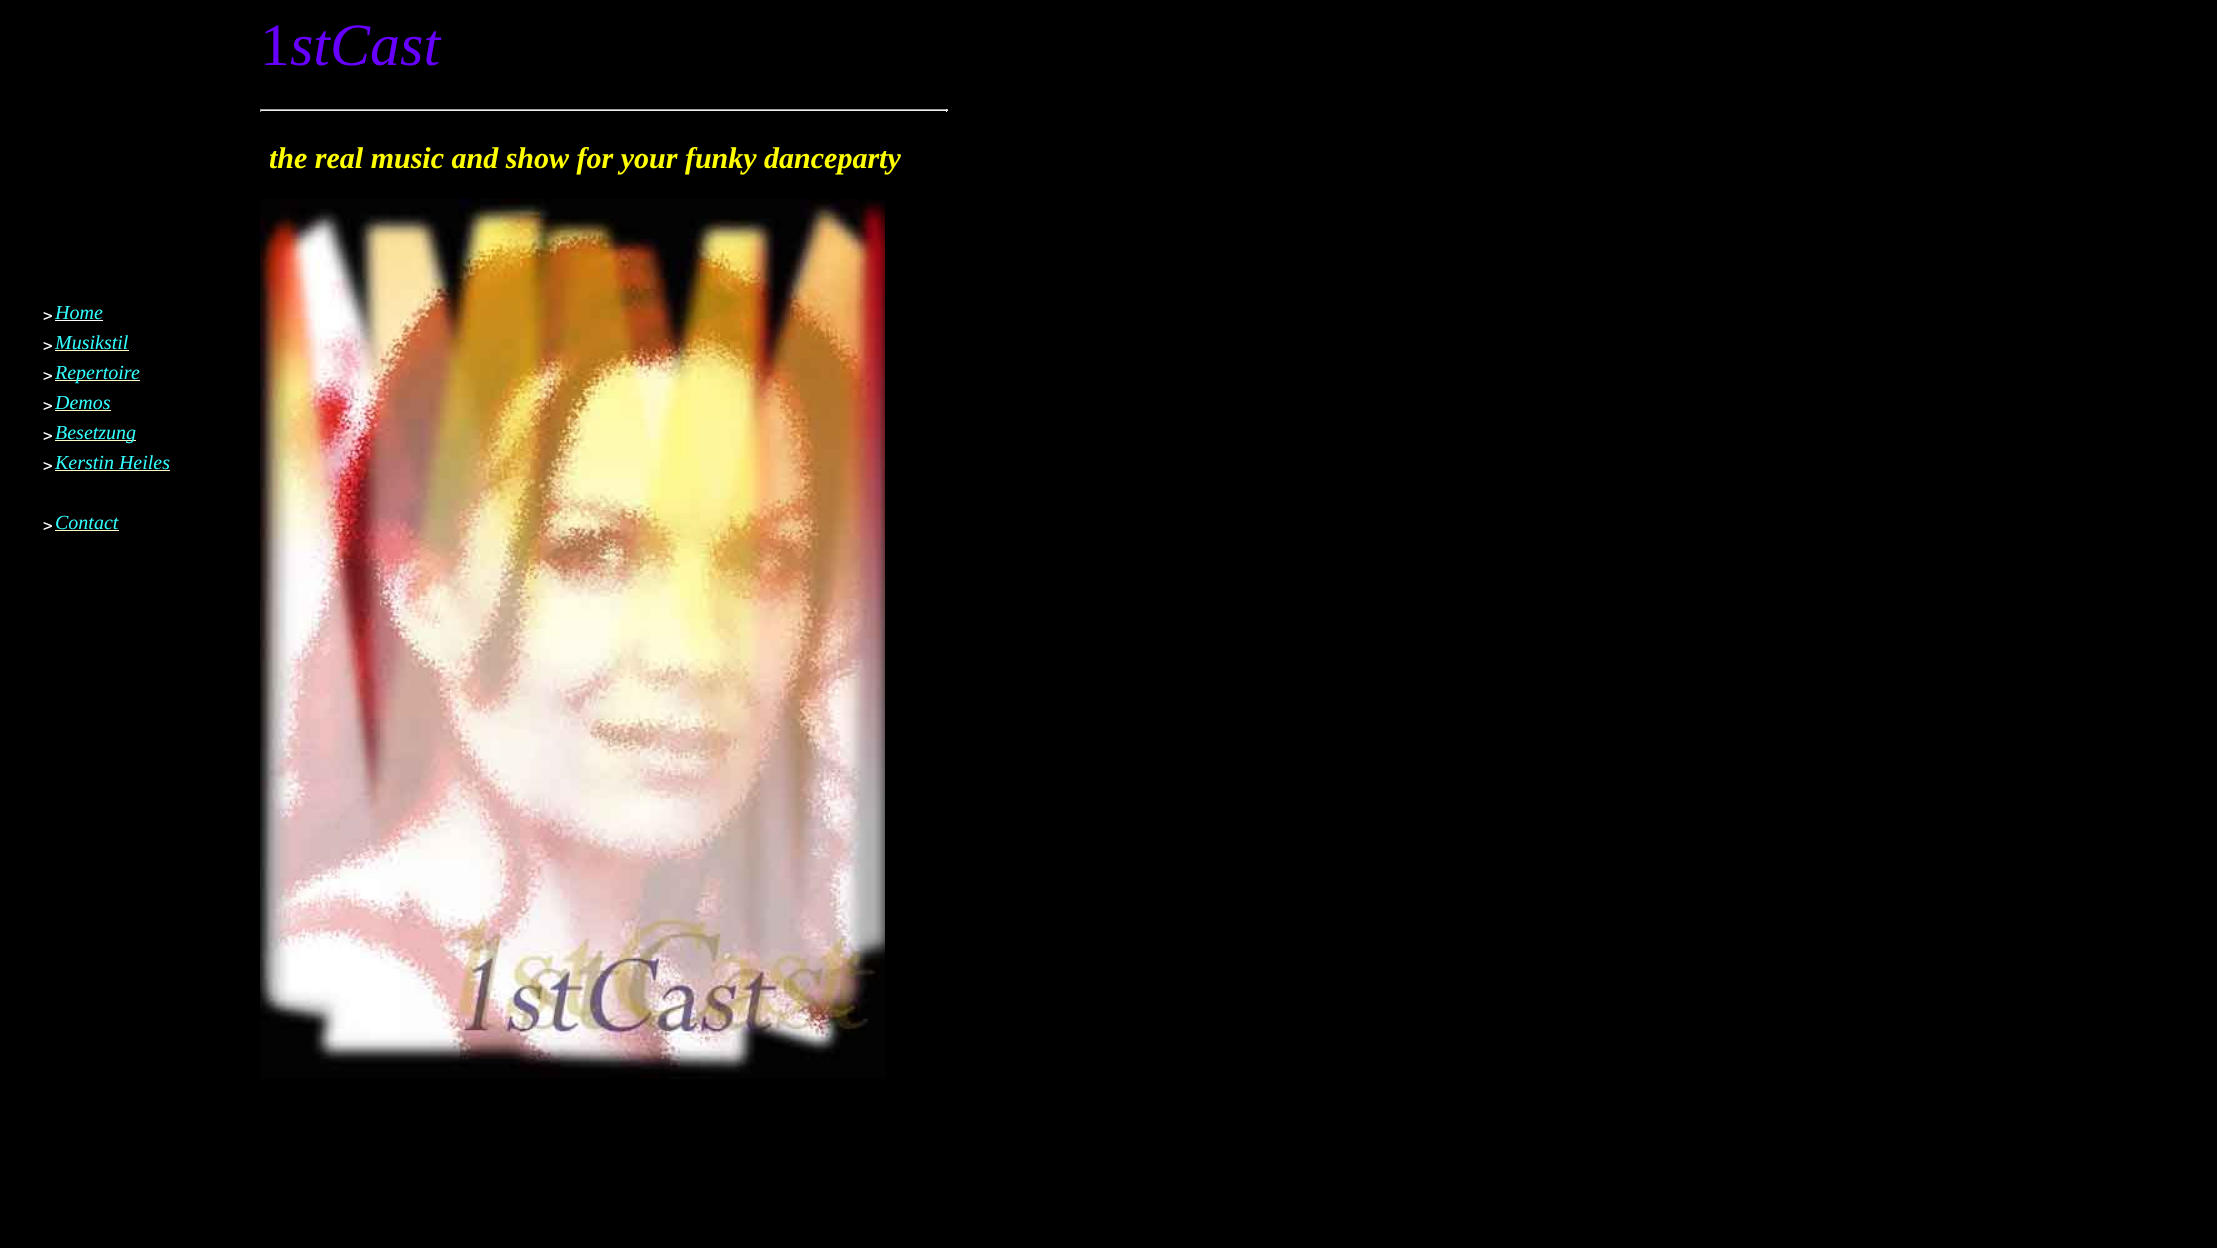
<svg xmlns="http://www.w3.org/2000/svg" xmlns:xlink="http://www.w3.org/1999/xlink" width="2217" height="1248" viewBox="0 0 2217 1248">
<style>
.cls-1{font:60px Liberation Serif;fill:#6800ff}
.cls-2{font:italic 60px Liberation Serif;fill:#6800ff}
.cls-3{font:italic bold 30px Liberation Serif;fill:#ffff00}
.cls-4{font:italic 16px DejaVu Sans Mono;fill:#ffffff}
.cls-5{font:italic 20px Liberation Serif;fill:#33ffff}
</style>
<rect width="100%" height="100%" fill="#000000"/>
<rect fill="#9f9f9f" x="260" y="109" width="688" height="1"/>
<rect fill="#eeeeee" x="946" y="109" width="1" height="3"/>
<rect fill="#eeeeee" x="260" y="110" width="688" height="1"/>
<rect fill="#9f9f9f" x="260" y="109" width="1" height="3"/>
<rect fill="#ffffff" x="55" y="320" width="48" height="1"/>
<rect fill="#ffffcc" x="55" y="350" width="74" height="1"/>
<rect fill="#ffffcc" x="55" y="380" width="85" height="1"/>
<rect fill="#ffffcc" x="55" y="410" width="56" height="1"/>
<rect fill="#ffffcc" x="55" y="440" width="81" height="1"/>
<rect fill="#ffffcc" x="55" y="470" width="115" height="1"/>
<rect fill="#ffffcc" x="55" y="530" width="64" height="1"/>
<image xlink:href="image0.png" x="260" y="198" width="625" height="881"/>
<text class="cls-1" x="260" y="65">1</text>
<text class="cls-2" x="290" y="65">stCast</text>
<text class="cls-3" x="269" y="168">the real music and show for your funky danceparty</text>
<text class="cls-4" x="43" y="321">&gt;</text>
<text class="cls-5" x="55" y="319">Home</text>
<text class="cls-4" x="43" y="351">&gt;</text>
<text class="cls-5" x="55" y="349">Musikstil</text>
<text class="cls-4" x="43" y="381">&gt;</text>
<text class="cls-5" x="55" y="379">Repertoire</text>
<text class="cls-4" x="43" y="411">&gt;</text>
<text class="cls-5" x="55" y="409">Demos</text>
<text class="cls-4" x="43" y="441">&gt;</text>
<text class="cls-5" x="55" y="439">Besetzung</text>
<text class="cls-4" x="43" y="471">&gt;</text>
<text class="cls-5" x="55" y="469">Kerstin Heiles</text>
<text class="cls-4" x="43" y="531">&gt;</text>
<text class="cls-5" x="55" y="529">Contact</text>
</svg>
